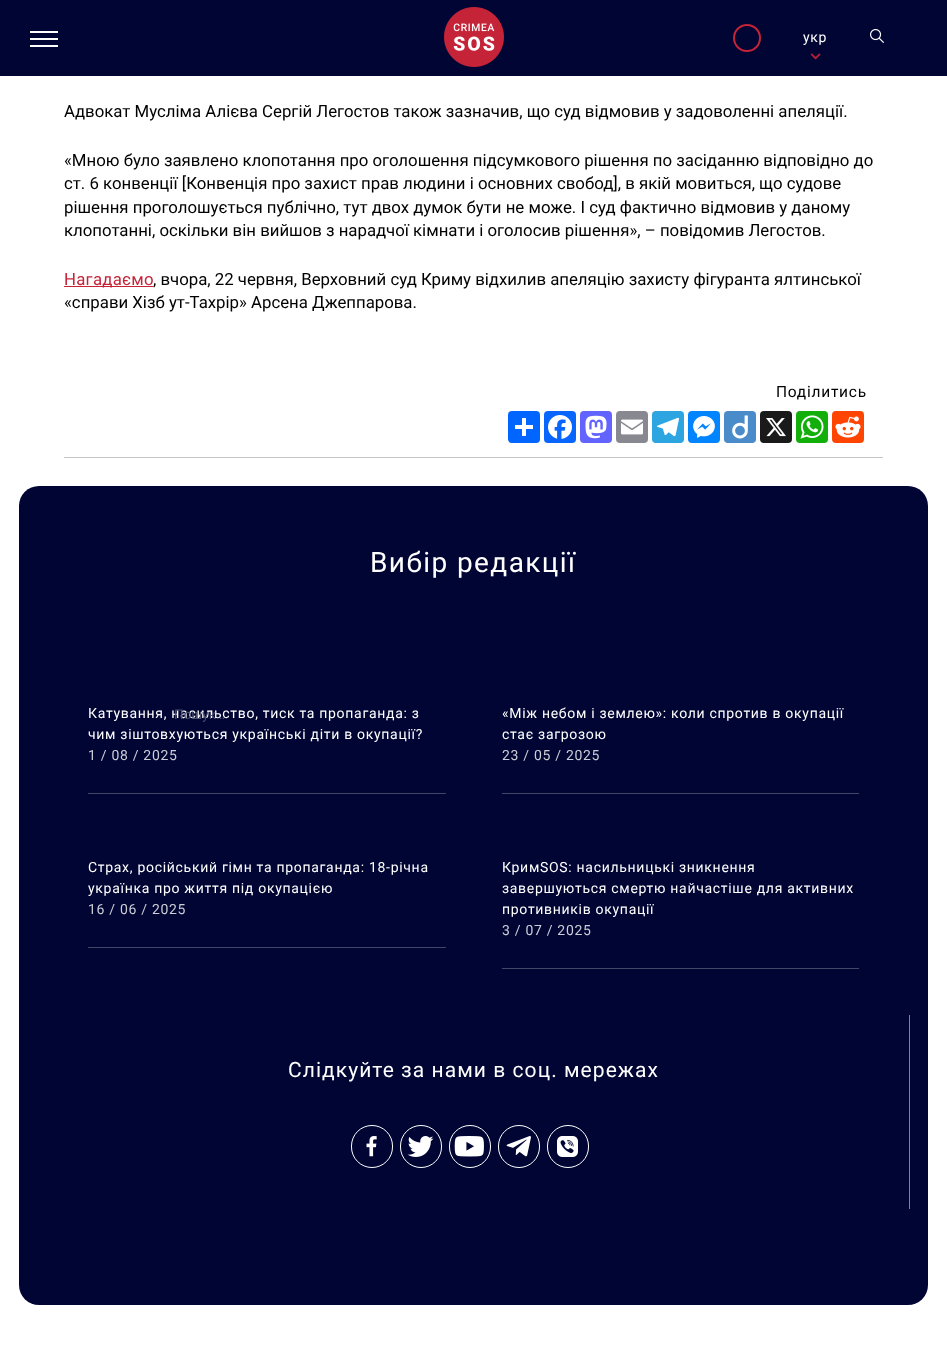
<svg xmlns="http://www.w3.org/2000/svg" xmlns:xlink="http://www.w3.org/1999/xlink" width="947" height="1346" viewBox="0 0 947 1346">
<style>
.cls-1{font:14px Roboto;letter-spacing:0.7px;fill:#ffffff}
.cls-2{font:16.8px Roboto;fill:#000000}
.cls-3{font:16.8px Roboto;letter-spacing:0.25px;fill:#c42338}
.cls-4{font:15.5px Roboto;letter-spacing:0.75px;fill:#000000}
.cls-5{font:28px Roboto;letter-spacing:1.4px;fill:#ffffff}
.cls-6{font:13.5px Roboto;fill:#4c4f70}
.cls-7{font:14px Roboto;letter-spacing:0.7px;fill:#cccdd6}
.cls-8{font:21px Roboto;letter-spacing:1.05px;fill:#ffffff}
</style>
<rect width="100%" height="100%" fill="#ffffff"/>
<rect fill="#000533" x="0" y="0" width="947" height="76"/>
<rect fill="#ffffff" x="30" y="31" width="28" height="2"/>
<rect fill="#ffffff" x="30" y="38" width="28" height="2"/>
<rect fill="#ffffff" x="30" y="45" width="28" height="2"/>
<image xlink:href="image0.png" x="444" y="7" width="60" height="60"/>
<circle fill="none" stroke="#c42338" stroke-width="2" cx="747" cy="38" r="13"/>
<image xlink:href="image1.png" x="810" y="53" width="11" height="7"/>
<image xlink:href="image2.png" x="870" y="29" width="14" height="14"/>
<rect fill="#c42338" x="64" y="286" width="89" height="1"/>
<rect fill="#c5c5c5" x="64" y="457" width="819" height="1"/>
<rect fill="#0166ff" x="508" y="411" width="32" height="32" rx="4"/>
<rect fill="#ffffff" x="522" y="418" width="4" height="18"/>
<rect fill="#ffffff" x="515" y="425" width="18" height="4"/>
<rect fill="#0866ff" x="544" y="411" width="32" height="32" rx="4"/>
<image xlink:href="image3.png" x="548" y="415" width="24" height="24"/>
<rect fill="#6364ff" x="580" y="411" width="32" height="32" rx="4"/>
<image xlink:href="image4.png" x="585" y="415" width="22" height="24"/>
<rect fill="#888990" x="616" y="411" width="32" height="32" rx="4"/>
<image xlink:href="image5.png" x="621" y="419" width="22" height="16"/>
<rect fill="#2ca5e0" x="652" y="411" width="32" height="32" rx="4"/>
<image xlink:href="image6.png" x="657" y="417" width="22" height="20"/>
<rect fill="#0084ff" x="688" y="411" width="32" height="32" rx="4"/>
<image xlink:href="image7.png" x="693" y="416" width="22" height="22"/>
<rect fill="#4a8bca" x="724" y="411" width="32" height="32" rx="4"/>
<image xlink:href="image8.png" x="732" y="415" width="16" height="24"/>
<rect fill="#1a1a1a" x="760" y="411" width="32" height="32" rx="4"/>
<image xlink:href="image9.png" x="766" y="418" width="20" height="19"/>
<rect fill="#12af0a" x="796" y="411" width="32" height="32" rx="4"/>
<image xlink:href="image10.png" x="800" y="415" width="24" height="24"/>
<rect fill="#ff4500" x="832" y="411" width="32" height="32" rx="4"/>
<image xlink:href="image11.png" x="835" y="416" width="26" height="22"/>
<rect fill="#000533" x="19" y="486" width="909" height="819" rx="20"/>
<rect fill="#424666" x="88" y="793" width="358" height="1"/>
<rect fill="#424666" x="502" y="793" width="357" height="1"/>
<rect fill="#424666" x="88" y="947" width="358" height="1"/>
<rect fill="#424666" x="502" y="968" width="357" height="1"/>
<rect fill="#808299" x="909" y="1015" width="1" height="194"/>
<rect fill="none" stroke="#ffffff" x="351.5" y="1125.5" width="41" height="42" rx="20.5"/>
<image xlink:href="image12.png" x="366" y="1136" width="11" height="21"/>
<rect fill="none" stroke="#ffffff" x="400.5" y="1125.5" width="41" height="42" rx="20.5"/>
<image xlink:href="image13.png" x="407" y="1136" width="27" height="21"/>
<rect fill="none" stroke="#ffffff" x="449.5" y="1125.5" width="41" height="42" rx="20.5"/>
<image xlink:href="image14.png" x="454" y="1136" width="30" height="21"/>
<rect fill="none" stroke="#ffffff" x="498.5" y="1125.5" width="41" height="42" rx="20.5"/>
<image xlink:href="image15.png" x="506" y="1136" width="25" height="21"/>
<rect fill="none" stroke="#ffffff" x="547.5" y="1125.5" width="41" height="42" rx="20.5"/>
<image xlink:href="image16.png" x="557" y="1136" width="21" height="21"/>
<text class="cls-1" x="803" y="42">укр</text>
<text class="cls-2" x="64" y="117">Адвокат Мусліма Алієва Сергій Легостов також зазначив, що суд відмовив у задоволенні апеляції.</text>
<text class="cls-2"><tspan x="64" y="166">«Мною було заявлено клопотання про оголошення підсумкового рішення по засіданню відповідно до</tspan><tspan x="64" y="189">ст. 6 конвенції [Конвенція про захист прав людини і основних свобод], в якій мовиться, що судове</tspan><tspan x="64" y="213">рішення проголошується публічно, тут двох думок бути не може. І суд фактично відмовив у даному</tspan><tspan x="64" y="236">клопотанні, оскільки він вийшов з нарадчої кімнати і оголосив рішення», – повідомив Легостов.</tspan></text>
<text class="cls-3" x="64" y="285">Нагадаємо</text>
<text class="cls-2" x="153" y="285">, вчора, 22 червня, Верховний суд Криму відхилив апеляцію захисту фігуранта ялтинської</text>
<text class="cls-2" x="64" y="308">«справи Хізб ут-Тахрір» Арсена Джеппарова.</text>
<text class="cls-4" x="776" y="397">Поділитись</text>
<text class="cls-5" x="370" y="572">Вибір редакції</text>
<text class="cls-1" x="88" y="718">Катування, насильство, тиск та пропаганда: з</text>
<text class="cls-6" x="174" y="719">Пошук…</text>
<text class="cls-1" x="88" y="739">чим зіштовхуються українські діти в окупації?</text>
<text class="cls-7" x="88" y="760">1 / 08 / 2025</text>
<text class="cls-1"><tspan x="502" y="718">«Між небом і землею»: коли спротив в окупації</tspan><tspan x="502" y="739">стає загрозою</tspan></text>
<text class="cls-7" x="502" y="760">23 / 05 / 2025</text>
<text class="cls-1"><tspan x="88" y="872">Страх, російський гімн та пропаганда: 18-річна</tspan><tspan x="88" y="893">українка про життя під окупацією</tspan></text>
<text class="cls-7" x="88" y="914">16 / 06 / 2025</text>
<text class="cls-1"><tspan x="502" y="872">КримSOS: насильницькі зникнення</tspan><tspan x="502" y="893">завершуються смертю найчастіше для активних</tspan><tspan x="502" y="914">противників окупації</tspan></text>
<text class="cls-7" x="502" y="935">3 / 07 / 2025</text>
<text class="cls-8" x="288" y="1077">Слідкуйте за нами в соц. мережах</text>
</svg>
